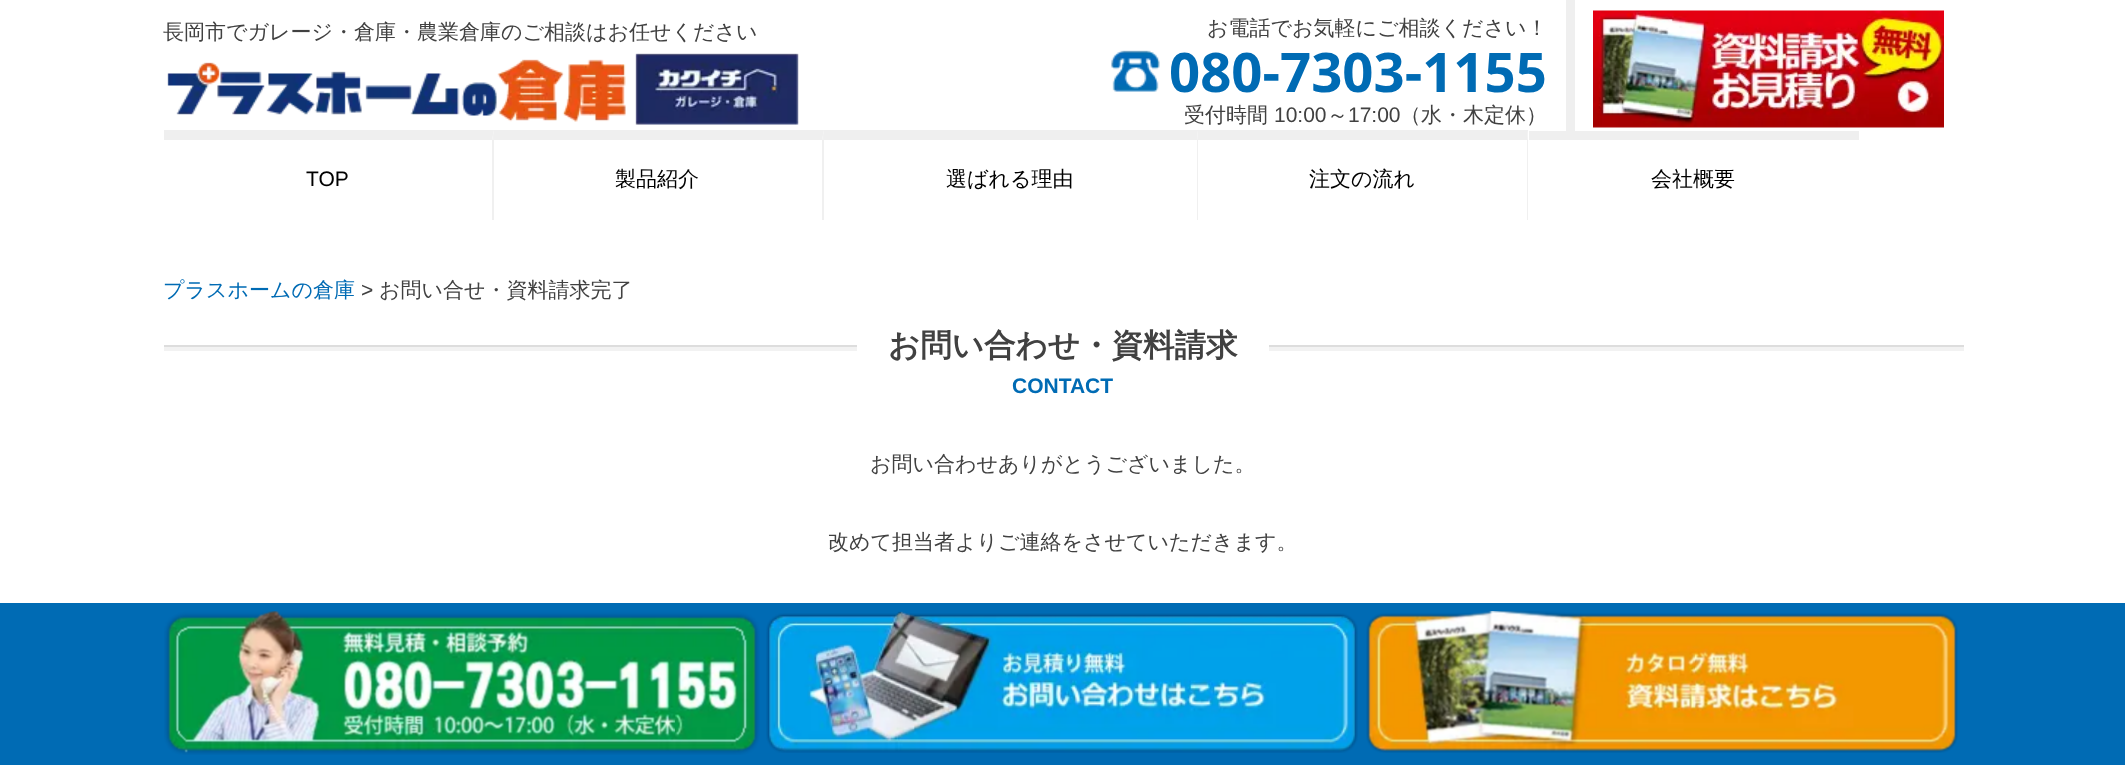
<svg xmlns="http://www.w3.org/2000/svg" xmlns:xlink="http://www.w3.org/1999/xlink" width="2125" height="765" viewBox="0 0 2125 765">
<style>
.cls-1{font:500 21px WenQuanYi Zen Hei;fill:#414141}
.cls-2{font:bold 54.5px Open Sans;fill:#006bb4}
.cls-3{font:21px Liberation Sans;fill:#414141}
.cls-4{font:21px Liberation Sans;fill:#000000}
.cls-5{font:500 21px WenQuanYi Zen Hei;fill:#000000}
.cls-6{font:500 21px WenQuanYi Zen Hei;fill:#006bb4}
.cls-7{font:bold 31.5px WenQuanYi Zen Hei;fill:#414141}
.cls-8{font:bold 21px Liberation Sans;fill:#006bb4}
</style>
<rect width="100%" height="100%" fill="#ffffff"/>
<image xlink:href="image0.png" x="167" y="53" width="632" height="72"/>
<image xlink:href="image1.png" x="1111" y="50" width="49" height="42"/>
<rect fill="#efefef" x="1566" y="0" width="9" height="131"/>
<image xlink:href="image2.png" x="1593" y="10" width="351" height="118"/>
<path fill="#efefef" d="M164 130H494L492 140H164Z"/>
<path fill="#f0f0f0" d="M494 130V220H492V140Z"/>
<path fill="#efefef" d="M494 130H824L822 140H494Z"/>
<path fill="#f0f0f0" d="M824 130V220H822V140Z"/>
<path fill="#efefef" d="M824 130H1198L1197 140H824Z"/>
<path fill="#f0f0f0" d="M1198 130V220H1197V140Z"/>
<path fill="#efefef" d="M1198 130H1528L1527 140H1198Z"/>
<path fill="#f0f0f0" d="M1528 130V220H1527V140Z"/>
<rect fill="#efefef" x="1529" y="131" width="330" height="9"/>
<rect fill="#f2f2f2" x="164" y="347" width="1800" height="4"/>
<rect fill="#dddddd" x="164" y="345" width="1800" height="2"/>
<rect fill="#ffffff" x="857" y="345" width="412" height="6"/>
<rect fill="#006bb4" x="0" y="603" width="2125" height="162"/>
<image xlink:href="image3.png" x="164" y="611" width="596" height="144"/>
<image xlink:href="image4.png" x="766" y="611" width="592" height="142"/>
<image xlink:href="image5.png" x="1366" y="611" width="592" height="142"/>
<text class="cls-1" x="163" y="39">長岡市でガレージ・倉庫・農業倉庫のご相談はお任せください</text>
<text class="cls-1" x="1207" y="35">お電話でお気軽にご相談ください！</text>
<text class="cls-2" x="1169" y="92">080-7303-1155</text>
<text class="cls-1" x="1184" y="122">受付時間</text>
<text class="cls-3" x="1274" y="122">10:00</text>
<text class="cls-1" x="1327" y="122">～</text>
<text class="cls-3" x="1348" y="122">17:00</text>
<text class="cls-1" x="1400" y="122">（水・木定休）</text>
<text class="cls-4" x="306" y="186">TOP</text>
<text class="cls-5" x="615" y="186">製品紹介</text>
<text class="cls-5" x="946" y="186">選ばれる理由</text>
<text class="cls-5" x="1309" y="186">注文の流れ</text>
<text class="cls-5" x="1651" y="186">会社概要</text>
<text class="cls-6" x="163" y="297">プラスホームの倉庫</text>
<text class="cls-3" x="361" y="297">&gt;</text>
<text class="cls-1" x="379" y="297">お問い合せ・資料請求完了</text>
<text class="cls-7" x="888" y="356">お問い合わせ・資料請求</text>
<text class="cls-8" x="1012" y="393">CONTACT</text>
<text class="cls-1" x="870" y="471">お問い合わせありがとうございました。</text>
<text class="cls-1" x="828" y="549">改めて担当者よりご連絡をさせていただきます。</text>
</svg>
